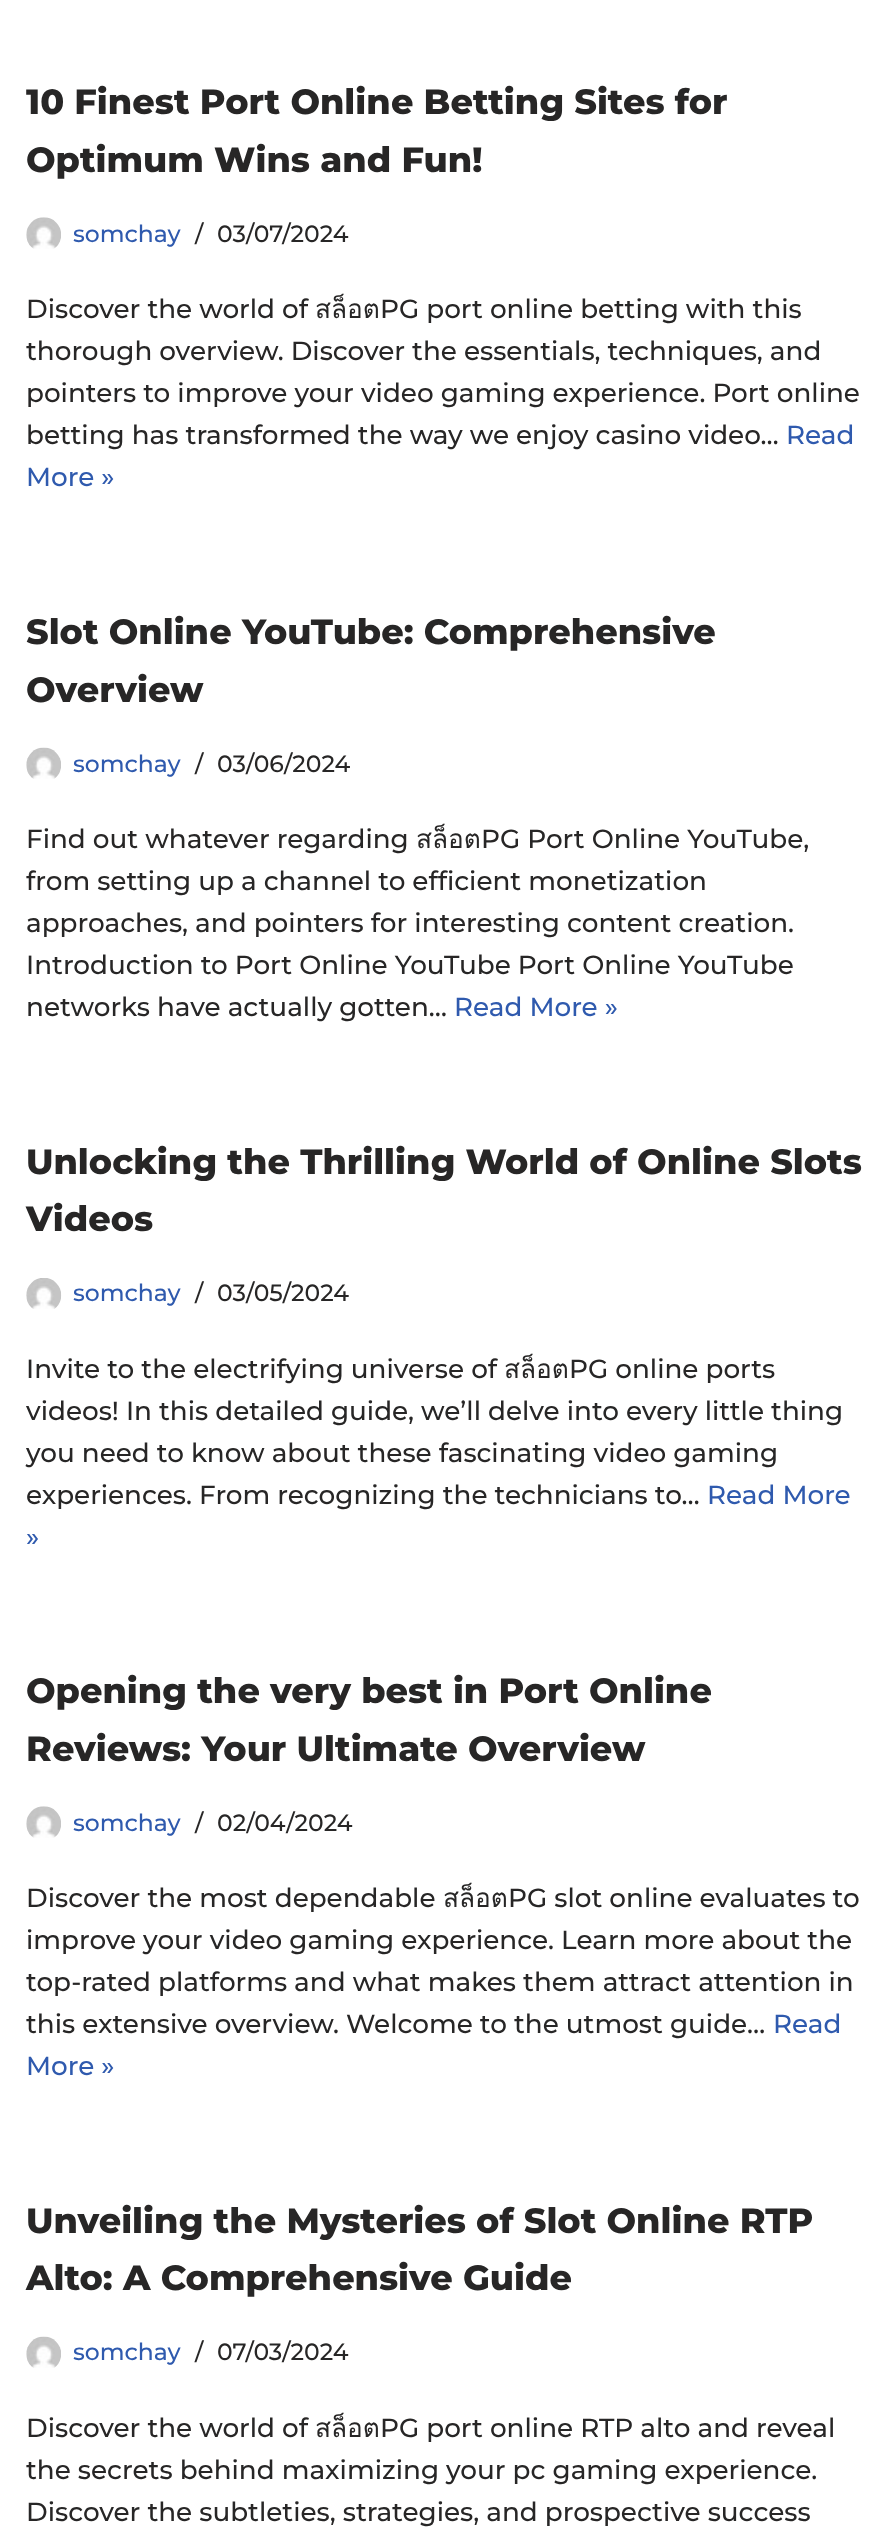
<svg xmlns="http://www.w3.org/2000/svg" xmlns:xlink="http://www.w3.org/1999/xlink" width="892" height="2535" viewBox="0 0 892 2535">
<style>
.cls-1{font:800 35px Montserrat;fill:#272626}
.cls-2{font:500 23.5px Montserrat;fill:#2f5aae}
.cls-3{font:500 23.5px Montserrat;fill:#272626}
.cls-4{font:500 26.25px Montserrat;fill:#272626}
.cls-5{font:26.25px Loma;fill:#272626}
.cls-6{font:500 26.25px Montserrat;fill:#2f5aae}
</style>
<rect width="100%" height="100%" fill="#ffffff"/>
<image xlink:href="image0.png" x="26" y="217" width="35" height="32"/>
<image xlink:href="image1.png" x="26" y="747" width="35" height="32"/>
<image xlink:href="image2.png" x="26" y="1278" width="36" height="31"/>
<image xlink:href="image0.png" x="26" y="1806" width="35" height="32"/>
<image xlink:href="image3.png" x="26" y="2336" width="35" height="32"/>
<text class="cls-1"><tspan x="26" y="114">10 Finest Port Online Betting Sites for</tspan><tspan x="26" y="172">Optimum Wins and Fun!</tspan></text>
<text class="cls-2" x="73" y="242">somchay</text>
<text class="cls-3" x="195" y="242">/</text>
<text class="cls-3" x="217" y="242">03/07/2024</text>
<text class="cls-4" x="26" y="318">Discover the world of</text>
<text class="cls-5" x="315" y="318">สล็อต</text>
<text class="cls-4" x="380" y="318">PG port online betting with this</text>
<text class="cls-4"><tspan x="26" y="360">thorough overview. Discover the essentials, techniques, and</tspan><tspan x="26" y="402">pointers to improve your video gaming experience. Port online</tspan><tspan x="26" y="444">betting has transformed the way we enjoy casino video…</tspan></text>
<text class="cls-6" x="786" y="444">Read</text>
<text class="cls-6" x="26" y="486">More »</text>
<text class="cls-1"><tspan x="26" y="644">Slot Online YouTube: Comprehensive</tspan><tspan x="26" y="702">Overview</tspan></text>
<text class="cls-2" x="73" y="772">somchay</text>
<text class="cls-3" x="195" y="772">/</text>
<text class="cls-3" x="217" y="772">03/06/2024</text>
<text class="cls-4" x="26" y="848">Find out whatever regarding</text>
<text class="cls-5" x="416" y="848">สล็อต</text>
<text class="cls-4" x="481" y="848">PG Port Online YouTube,</text>
<text class="cls-4"><tspan x="26" y="890">from setting up a channel to efficient monetization</tspan><tspan x="26" y="932">approaches, and pointers for interesting content creation.</tspan><tspan x="26" y="974">Introduction to Port Online YouTube Port Online YouTube</tspan><tspan x="26" y="1016">networks have actually gotten…</tspan></text>
<text class="cls-6" x="454" y="1016">Read More »</text>
<text class="cls-1"><tspan x="26" y="1174">Unlocking the Thrilling World of Online Slots</tspan><tspan x="26" y="1231">Videos</tspan></text>
<text class="cls-2" x="73" y="1301">somchay</text>
<text class="cls-3" x="195" y="1301">/</text>
<text class="cls-3" x="217" y="1301">03/05/2024</text>
<text class="cls-4" x="26" y="1378">Invite to the electrifying universe of</text>
<text class="cls-5" x="504" y="1378">สล็อต</text>
<text class="cls-4" x="569" y="1378">PG online ports</text>
<text class="cls-4"><tspan x="26" y="1420">videos! In this detailed guide, we’ll delve into every little thing</tspan><tspan x="26" y="1462">you need to know about these fascinating video gaming</tspan><tspan x="26" y="1504">experiences. From recognizing the technicians to…</tspan></text>
<text class="cls-6" x="707" y="1504">Read More</text>
<text class="cls-6" x="26" y="1546">»</text>
<text class="cls-1"><tspan x="26" y="1703">Opening the very best in Port Online</tspan><tspan x="26" y="1761">Reviews: Your Ultimate Overview</tspan></text>
<text class="cls-2" x="73" y="1831">somchay</text>
<text class="cls-3" x="195" y="1831">/</text>
<text class="cls-3" x="217" y="1831">02/04/2024</text>
<text class="cls-4" x="26" y="1907">Discover the most dependable</text>
<text class="cls-5" x="443" y="1907">สล็อต</text>
<text class="cls-4" x="508" y="1907">PG slot online evaluates to</text>
<text class="cls-4"><tspan x="26" y="1949">improve your video gaming experience. Learn more about the</tspan><tspan x="26" y="1991">top-rated platforms and what makes them attract attention in</tspan><tspan x="26" y="2033">this extensive overview. Welcome to the utmost guide…</tspan></text>
<text class="cls-6" x="773" y="2033">Read</text>
<text class="cls-6" x="26" y="2075">More »</text>
<text class="cls-1"><tspan x="26" y="2233">Unveiling the Mysteries of Slot Online RTP</tspan><tspan x="26" y="2290">Alto: A Comprehensive Guide</tspan></text>
<text class="cls-2" x="73" y="2360">somchay</text>
<text class="cls-3" x="195" y="2360">/</text>
<text class="cls-3" x="217" y="2360">07/03/2024</text>
<text class="cls-4" x="26" y="2437">Discover the world of</text>
<text class="cls-5" x="315" y="2437">สล็อต</text>
<text class="cls-4" x="380" y="2437">PG port online RTP alto and reveal</text>
<text class="cls-4"><tspan x="26" y="2479">the secrets behind maximizing your pc gaming experience.</tspan><tspan x="26" y="2521">Discover the subtleties, strategies, and prospective success</tspan></text>
</svg>
